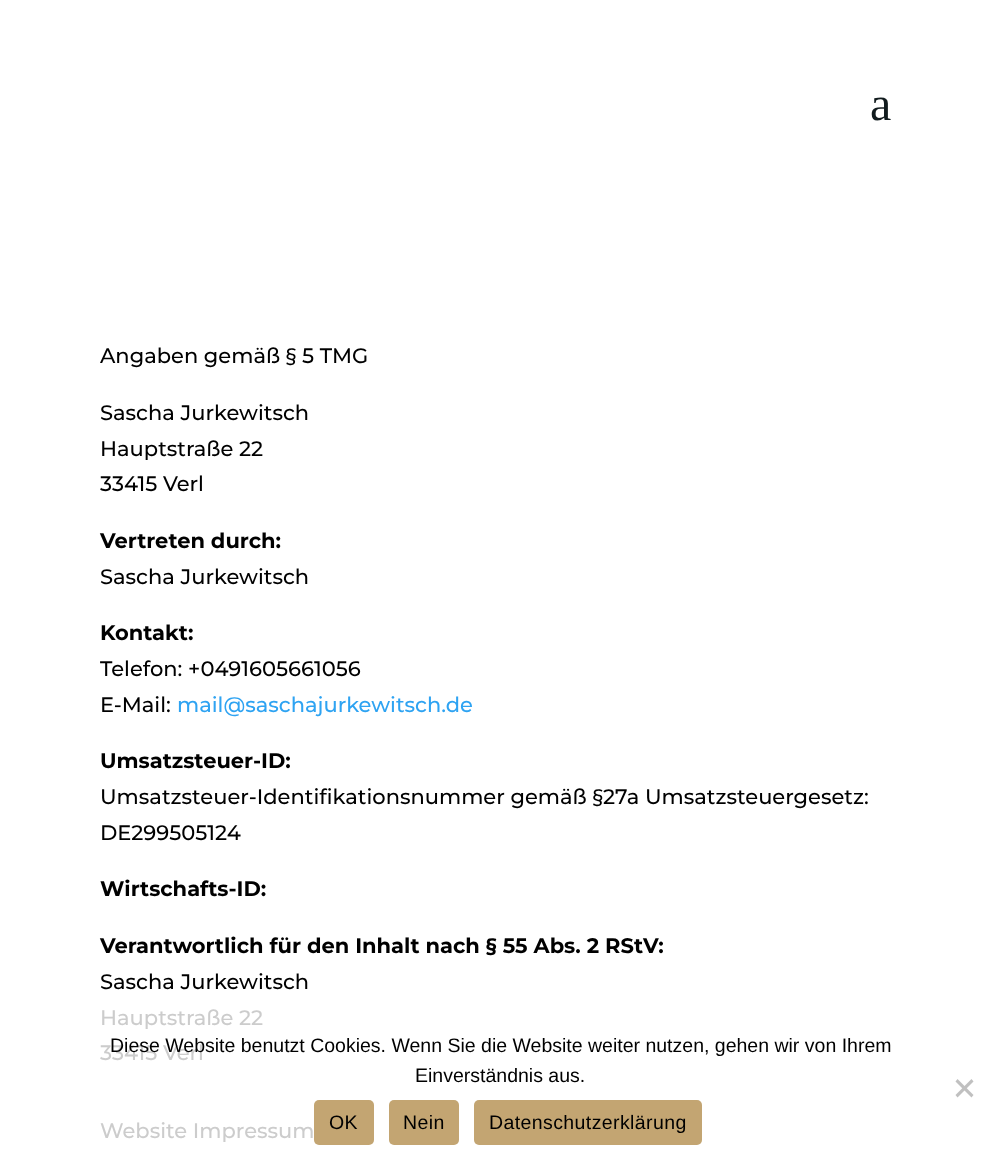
<svg xmlns="http://www.w3.org/2000/svg" xmlns:xlink="http://www.w3.org/1999/xlink" width="1000" height="1167" viewBox="0 0 1000 1167">
<style>
.cls-1{font:48px Liberation Serif;fill:#111b1e}
.cls-2{font:500 21px Montserrat;fill:#000000}
.cls-3{font:bold 21px Montserrat;fill:#000000}
.cls-4{font:500 21px Montserrat;fill:#2ea3f2}
.cls-5{font:500 21px Montserrat;fill:#cccccc}
.cls-6{font:19.5px Liberation Sans;fill:#000000}
.cls-7{font:19.5px Liberation Sans;letter-spacing:0.4px;fill:#000000}
</style>
<rect width="100%" height="100%" fill="#ffffff"/>
<path fill="#c0c0c0" d="M971.5 1079L973.5 1081.5L957.5 1097.5L955.5 1095Z"/>
<path fill="#c0c0c0" d="M955.5 1081.5L957.5 1079L973.5 1095L971.5 1097.5Z"/>
<rect fill="#c3a572" x="314" y="1100" width="60" height="45" rx="5"/>
<rect fill="#c3a572" x="389" y="1100" width="70" height="45" rx="5"/>
<rect fill="#c3a572" x="474" y="1100" width="228" height="45" rx="5"/>
<text class="cls-1" x="870" y="120">a</text>
<text class="cls-2" x="100" y="363">Angaben gemäß § 5 TMG</text>
<text class="cls-2"><tspan x="100" y="420">Sascha Jurkewitsch</tspan><tspan x="100" y="456">Hauptstraße 22</tspan><tspan x="100" y="491">33415 Verl</tspan></text>
<text class="cls-3" x="100" y="548">Vertreten durch:</text>
<text class="cls-2" x="100" y="584">Sascha Jurkewitsch</text>
<text class="cls-3" x="100" y="640">Kontakt:</text>
<text class="cls-2"><tspan x="100" y="676">Telefon: +0491605661056</tspan><tspan x="100" y="712">E-Mail:</tspan></text>
<text class="cls-4" x="177" y="712">mail@saschajurkewitsch.de</text>
<text class="cls-3" x="100" y="768">Umsatzsteuer-ID:</text>
<text class="cls-2"><tspan x="100" y="804">Umsatzsteuer-Identifikationsnummer gemäß §27a Umsatzsteuergesetz:</tspan><tspan x="100" y="840">DE299505124</tspan></text>
<text class="cls-3" x="100" y="896">Wirtschafts-ID:</text>
<text class="cls-3" x="100" y="953">Verantwortlich für den Inhalt nach § 55 Abs. 2 RStV:</text>
<text class="cls-2" x="100" y="989">Sascha Jurkewitsch</text>
<text class="cls-5"><tspan x="100" y="1025">Hauptstraße 22</tspan><tspan x="100" y="1060">33415 Verl</tspan></text>
<text class="cls-5" x="100" y="1138">Website Impressum</text>
<text class="cls-6" x="110" y="1052">Diese Website benutzt Cookies. Wenn Sie die Website weiter nutzen, gehen wir von Ihrem</text>
<text class="cls-6" x="415" y="1082">Einverständnis aus.</text>
<text class="cls-7" x="329" y="1129">OK</text>
<text class="cls-7" x="403" y="1129">Nein</text>
<text class="cls-7" x="489" y="1129">Datenschutzerklärung</text>
</svg>
